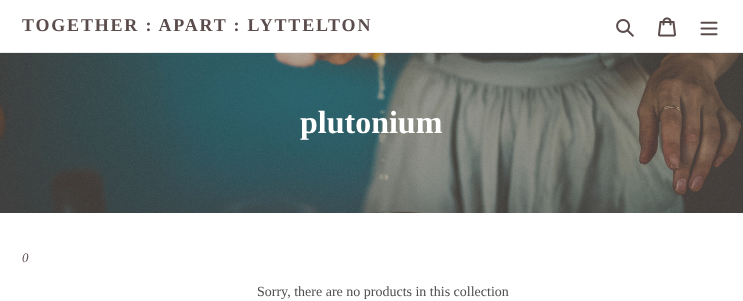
<svg xmlns="http://www.w3.org/2000/svg" xmlns:xlink="http://www.w3.org/1999/xlink" width="743" height="301" viewBox="0 0 743 301">
<style>
.cls-1{font:bold 18px Liberation Serif;letter-spacing:1.8px;fill:#5b4c4c}
.cls-2{font:bold 32px Liberation Serif;fill:#ffffff}
.cls-3{font:italic 13px Liberation Serif;fill:#5b4c4c}
.cls-4{font:14px Liberation Serif;fill:#514e4e}
</style>
<rect width="100%" height="100%" fill="#ffffff"/>
<rect fill="#ebebeb" x="0" y="52" width="743" height="1"/>
<image xlink:href="image0.png" x="616" y="19" width="18" height="18"/>
<image xlink:href="image1.png" x="658" y="17" width="18" height="20"/>
<image xlink:href="image2.png" x="700" y="21" width="18" height="15"/>
<image xlink:href="image3.png" x="0" y="53" width="743" height="160"/>
<text class="cls-1" x="22" y="31">TOGETHER : APART : LYTTELTON</text>
<text class="cls-2" x="300" y="133">plutonium</text>
<text class="cls-3" x="22" y="262">0</text>
<text class="cls-4" x="257" y="296">Sorry, there are no products in this collection</text>
</svg>
